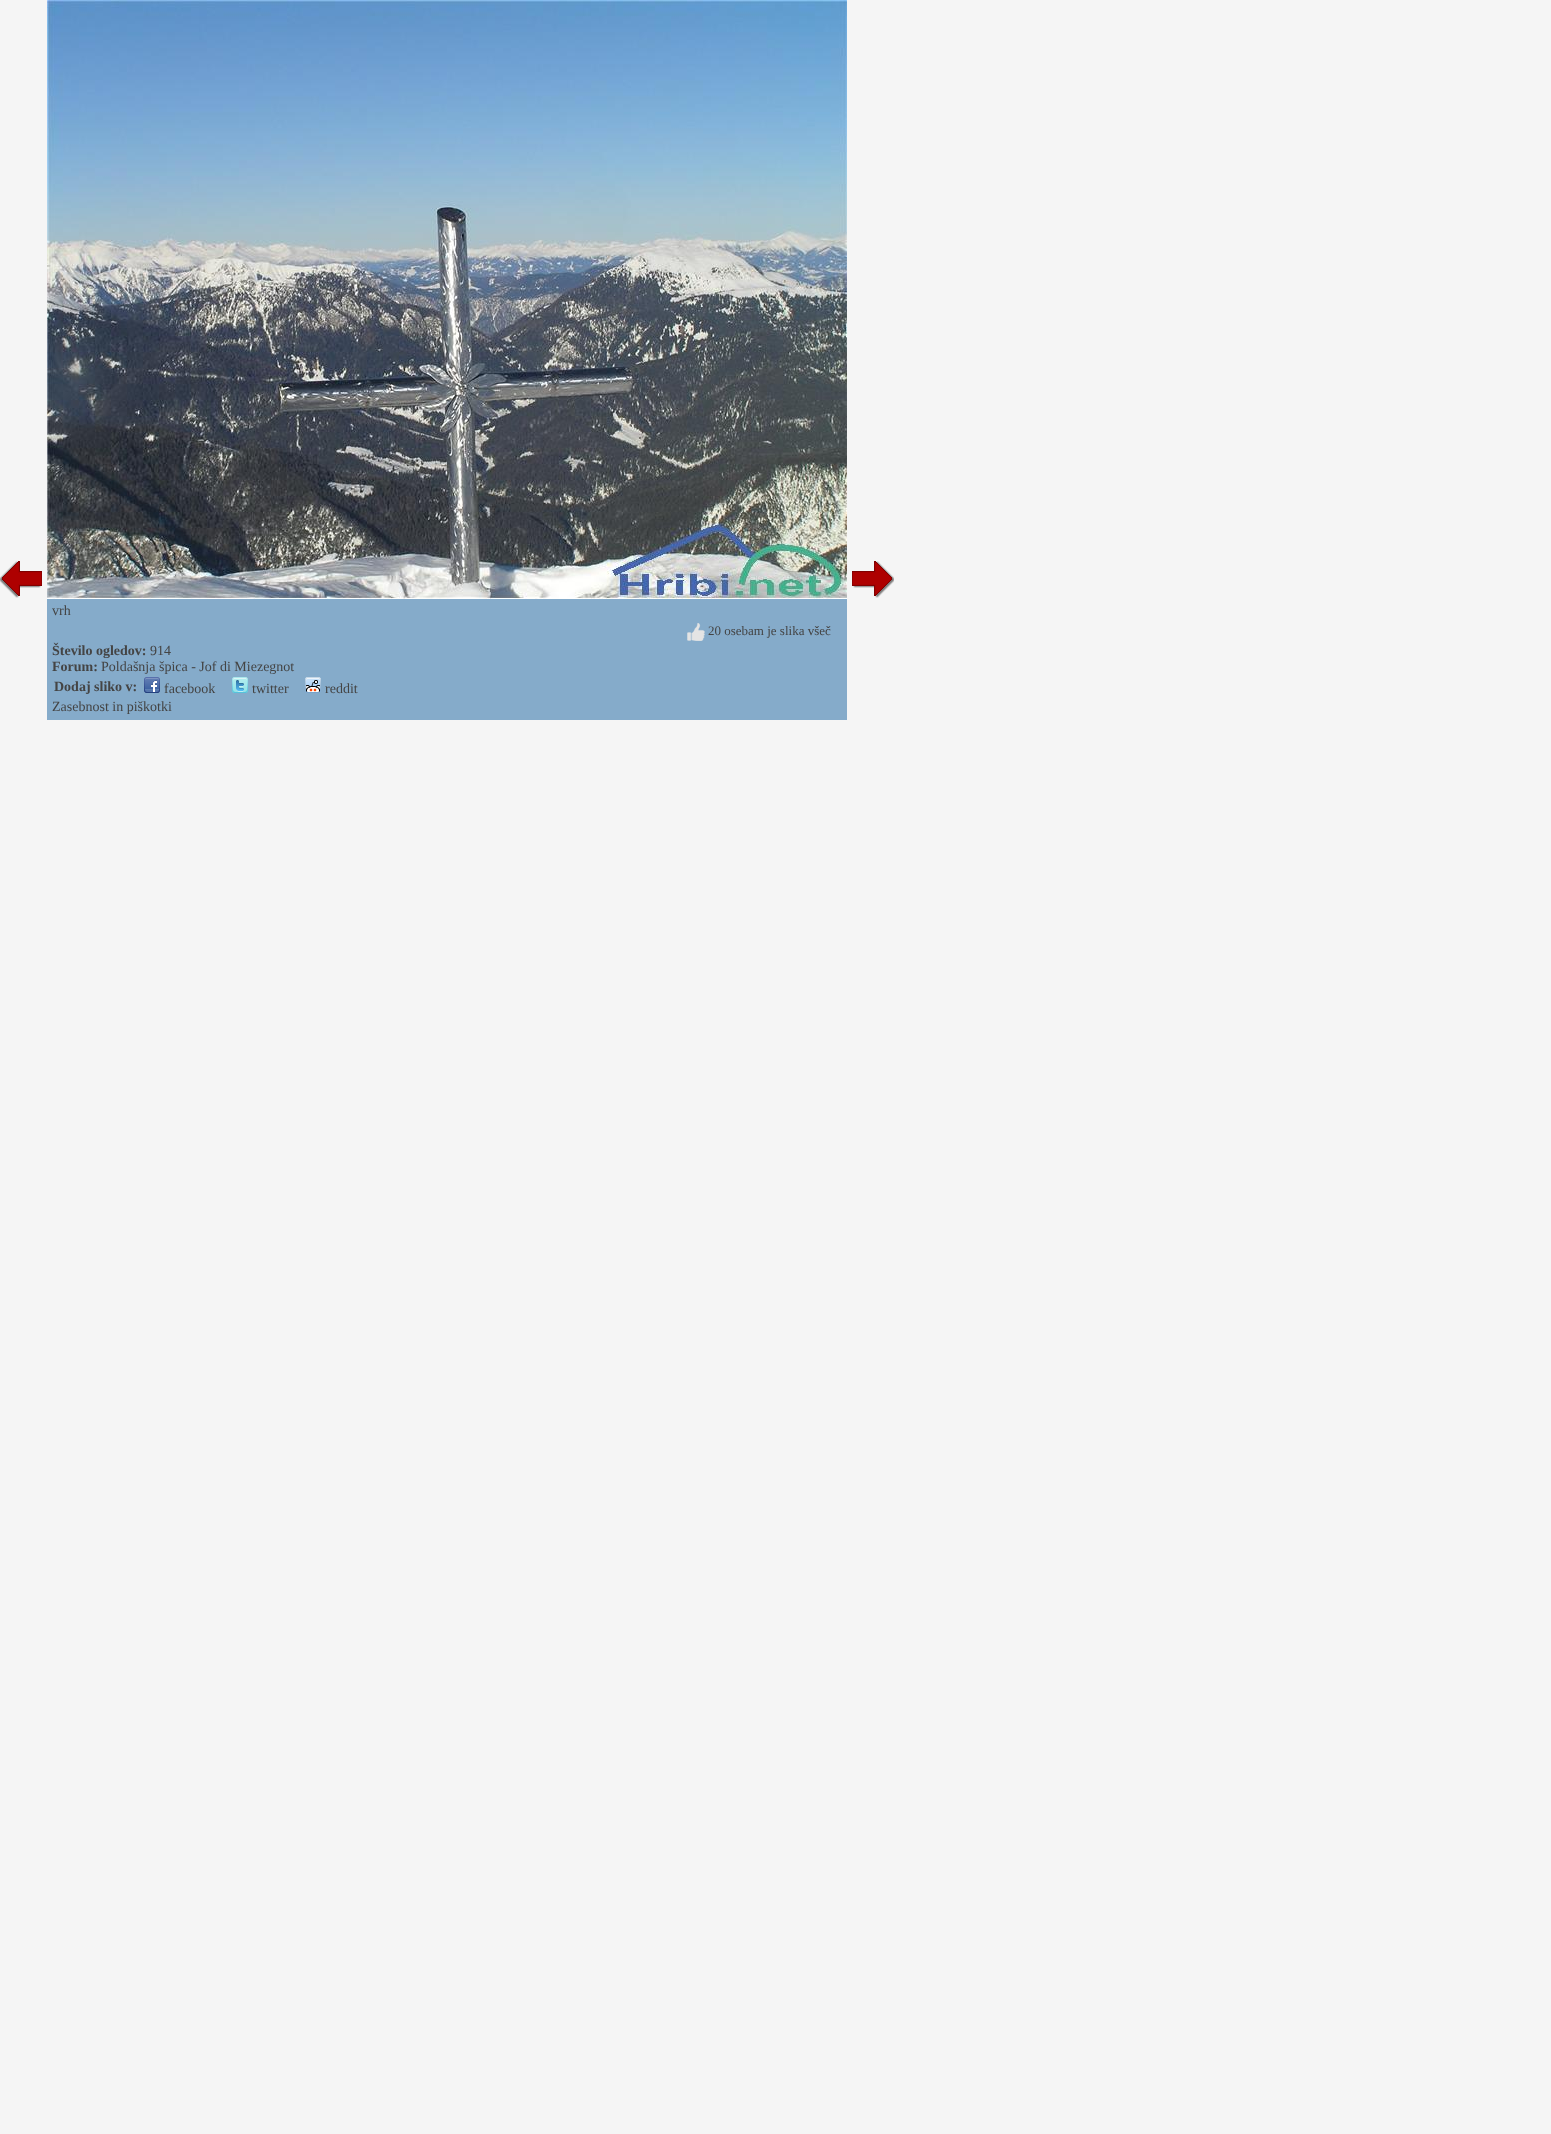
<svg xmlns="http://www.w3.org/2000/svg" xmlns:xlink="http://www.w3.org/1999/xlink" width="1551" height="2134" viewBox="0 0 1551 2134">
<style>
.cls-1{font:14px Liberation Serif;fill:#444444}
.cls-2{font:13px Liberation Serif;fill:#444444}
.cls-3{font:bold 14px Liberation Serif;fill:#444444}
</style>
<rect width="100%" height="100%" fill="#f5f5f5"/>
<image xlink:href="image0.png" x="0" y="561" width="42" height="37"/>
<image xlink:href="image1.png" x="852" y="561" width="42" height="37"/>
<rect fill="#85abca" x="47" y="599" width="800" height="121"/>
<image xlink:href="image2.png" x="47" y="0" width="800" height="599"/>
<image xlink:href="image3.png" x="687" y="623" width="18" height="18"/>
<image xlink:href="image4.png" x="144" y="677" width="16" height="16"/>
<image xlink:href="image5.png" x="232" y="677" width="16" height="16"/>
<image xlink:href="image6.png" x="305" y="677" width="16" height="16"/>
<text class="cls-1" x="52" y="615">vrh</text>
<text class="cls-2" x="708" y="635">20 osebam je slika všeč</text>
<text class="cls-3" x="52" y="655">Število ogledov:</text>
<text class="cls-1" x="150" y="655">914</text>
<text class="cls-3" x="52" y="671">Forum:</text>
<text class="cls-1" x="101" y="671">Poldašnja špica - Jof di Miezegnot</text>
<text class="cls-3" x="54" y="691">Dodaj sliko v:</text>
<text class="cls-1" x="164" y="693">facebook</text>
<text class="cls-1" x="252" y="693">twitter</text>
<text class="cls-1" x="325" y="693">reddit</text>
<text class="cls-1" x="52" y="711">Zasebnost in piškotki</text>
</svg>
